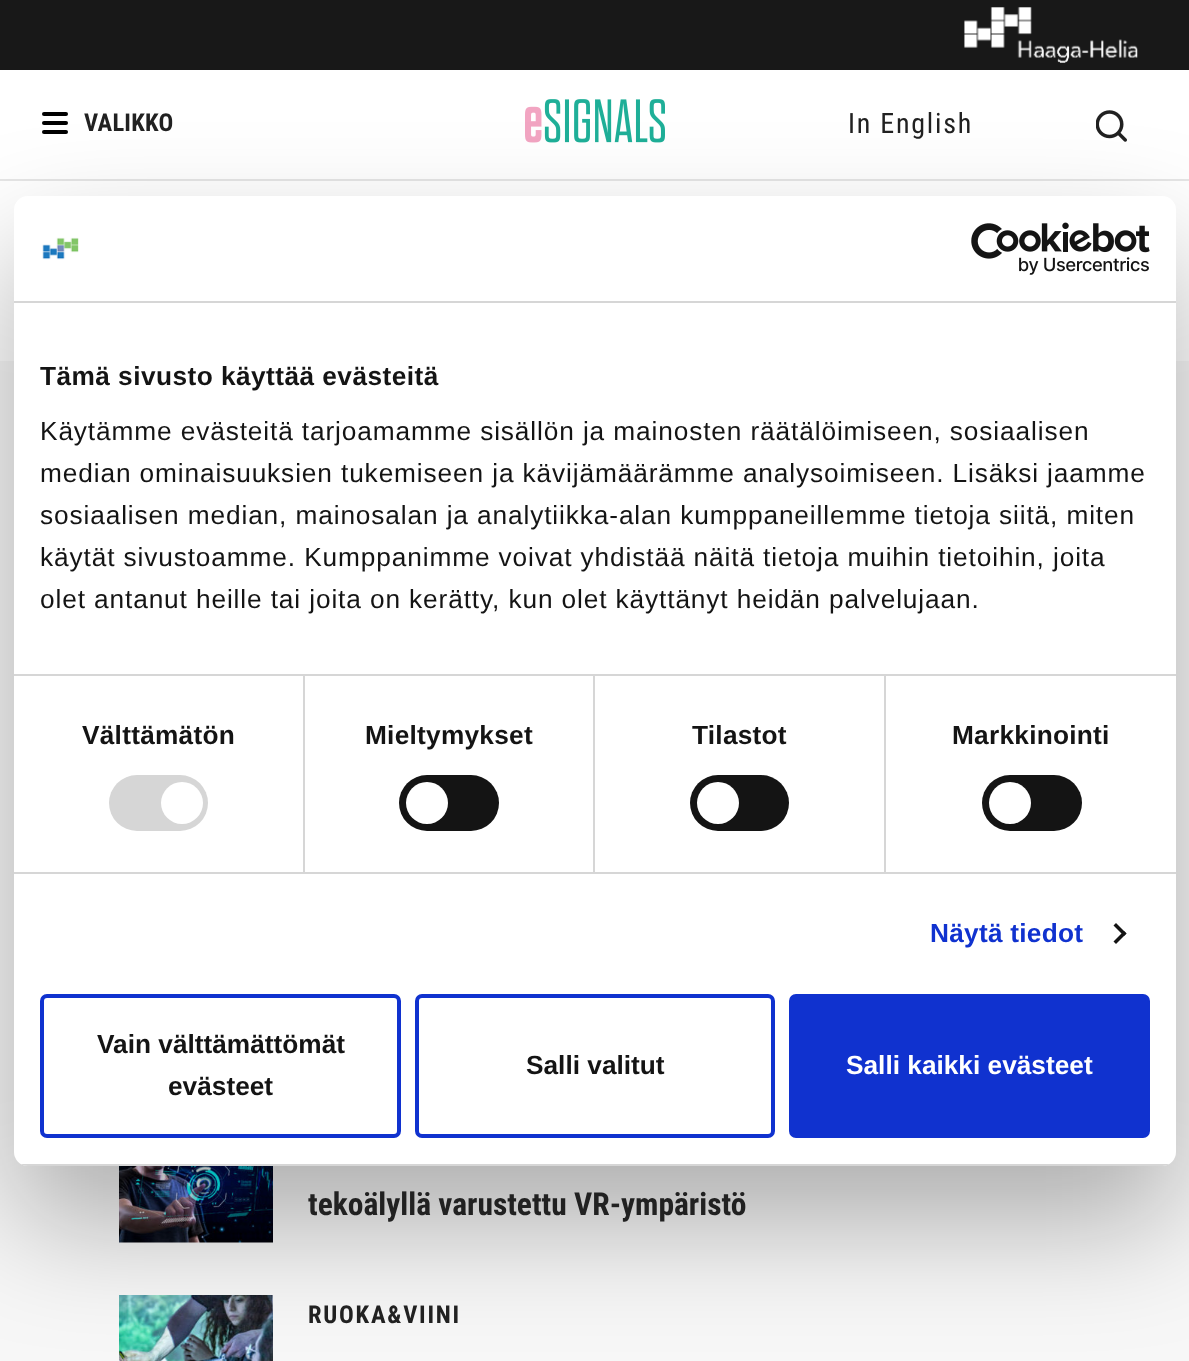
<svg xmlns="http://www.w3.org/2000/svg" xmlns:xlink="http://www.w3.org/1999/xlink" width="1189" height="1361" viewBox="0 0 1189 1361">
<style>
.cls-1{font:bold 24.5px Roboto Condensed;letter-spacing:0.25px;fill:#212121}
.cls-2{font:28px Roboto Condensed;letter-spacing:1.75px;fill:#212121}
.cls-3{font:bold 31.5px Roboto Condensed;fill:#212121}
.cls-4{font:bold 24.5px Roboto Condensed;letter-spacing:1.75px;fill:#212121}
.cls-5{font:bold 26.25px Liberation Sans;letter-spacing:0.45px;fill:#141414}
.cls-6{font:26.25px Liberation Sans;letter-spacing:0.88px;fill:#141414}
.cls-7{font:bold 26.25px Liberation Sans;letter-spacing:0.25px;fill:#141414}
.cls-8{font:bold 26.25px Liberation Sans;letter-spacing:0.25px;fill:#1032cf}
.cls-9{font:bold 26.25px Liberation Sans;fill:#141414}
.cls-10{font:bold 26.25px Liberation Sans;fill:#ffffff}
</style>
<defs>
<clipPath id="clip1"><rect x="14" y="196" width="1162" height="970" rx="14"/></clipPath>
</defs>
<rect width="100%" height="100%" fill="#ffffff"/>
<rect fill="#181818" x="0" y="0" width="1189" height="70"/>
<image xlink:href="image0.png" x="964" y="7" width="174" height="56"/>
<rect fill="#e6e6e6" x="0" y="179" width="1189" height="2"/>
<rect fill="#000000" x="42" y="112" width="26" height="4" rx="2"/>
<rect fill="#000000" x="42" y="121" width="26" height="4" rx="2"/>
<rect fill="#000000" x="42" y="130" width="26" height="4" rx="2"/>
<image xlink:href="image1.png" x="525" y="99" width="140" height="44"/>
<image xlink:href="image2.png" x="1096" y="110" width="31" height="32"/>
<rect fill="#f7f7f7" x="0" y="361" width="1189" height="1000"/>
<image xlink:href="image3.png" x="119" y="1166" width="154" height="77"/>
<image xlink:href="image4.png" x="119" y="1295" width="154" height="66"/>
<rect fill="#000000" fill-opacity="0.3" filter="blur(59.5px)" x="14" y="252" width="1162" height="970" rx="14"/>
<rect fill="#ffffff" x="14" y="196" width="1162" height="970" rx="14"/>
<rect fill="#d6d6d6" x="14" y="301" width="1162" height="2"/>
<image xlink:href="image5.png" x="42" y="237" width="37" height="23"/>
<image xlink:href="image6.png" x="971" y="222" width="179" height="53"/>
<rect fill="#d6d6d6" x="14" y="674" width="1162" height="2"/>
<rect fill="#d6d6d6" x="14" y="872" width="1162" height="2"/>
<rect fill="#d6d6d6" x="303" y="676" width="2" height="196"/>
<rect fill="#d6d6d6" x="109" y="775" width="99" height="56" rx="28"/>
<circle fill="#ffffff" cx="182" cy="803" r="21"/>
<rect fill="#d6d6d6" x="593" y="676" width="2" height="196"/>
<rect fill="#141414" x="399" y="775" width="100" height="56" rx="28"/>
<circle fill="#ffffff" cx="427" cy="803" r="21"/>
<rect fill="#d6d6d6" x="884" y="676" width="2" height="196"/>
<rect fill="#141414" x="690" y="775" width="99" height="56" rx="28"/>
<circle fill="#ffffff" cx="718" cy="803" r="21"/>
<rect fill="#141414" x="982" y="775" width="100" height="56" rx="28"/>
<circle fill="#ffffff" cx="1010" cy="803" r="21"/>
<path fill="#141414" d="M1116 923L1126.5 933.5L1124 936L1113.5 925.5Z"/>
<path fill="#141414" d="M1124 931L1126.5 933.5L1116 944L1113.5 941.5Z"/>
<g clip-path="url(#clip1)">
<rect fill="#d6d6d6" x="14" y="1164" width="1162" height="2"/>
</g>
<rect fill="none" stroke="#1032cf" stroke-width="4" x="42" y="996" width="357" height="140" rx="5"/>
<rect fill="none" stroke="#1032cf" stroke-width="4" x="417" y="996" width="356" height="140" rx="5"/>
<rect fill="#1032cf" stroke="#1032cf" stroke-width="4" x="791" y="996" width="357" height="140" rx="5"/>
<text class="cls-1" x="84" y="131">VALIKKO</text>
<text class="cls-2" x="848" y="133">In English</text>
<text class="cls-3" x="308" y="1215">tekoälyllä varustettu VR-ympäristö</text>
<text class="cls-4" x="308" y="1323">RUOKA&amp;VIINI</text>
<text class="cls-5" x="40" y="385">Tämä sivusto käyttää evästeitä</text>
<text class="cls-6"><tspan x="40" y="440">Käytämme evästeitä tarjoamamme sisällön ja mainosten räätälöimiseen, sosiaalisen</tspan><tspan x="40" y="482">median ominaisuuksien tukemiseen ja kävijämäärämme analysoimiseen. Lisäksi jaamme</tspan><tspan x="40" y="524">sosiaalisen median, mainosalan ja analytiikka-alan kumppaneillemme tietoja siitä, miten</tspan><tspan x="40" y="566">käytät sivustoamme. Kumppanimme voivat yhdistää näitä tietoja muihin tietoihin, joita</tspan><tspan x="40" y="608">olet antanut heille tai joita on kerätty, kun olet käyttänyt heidän palvelujaan.</tspan></text>
<text class="cls-7" x="82" y="744">Välttämätön</text>
<text class="cls-7" x="365" y="744">Mieltymykset</text>
<text class="cls-7" x="692" y="744">Tilastot</text>
<text class="cls-7" x="952" y="744">Markkinointi</text>
<text class="cls-8" x="930" y="942">Näytä tiedot</text>
<text class="cls-9" x="97" y="1053">Vain välttämättömät</text>
<text class="cls-9" x="168" y="1095">evästeet</text>
<text class="cls-9" x="526" y="1074">Salli valitut</text>
<text class="cls-10" x="846" y="1074">Salli kaikki evästeet</text>
</svg>
